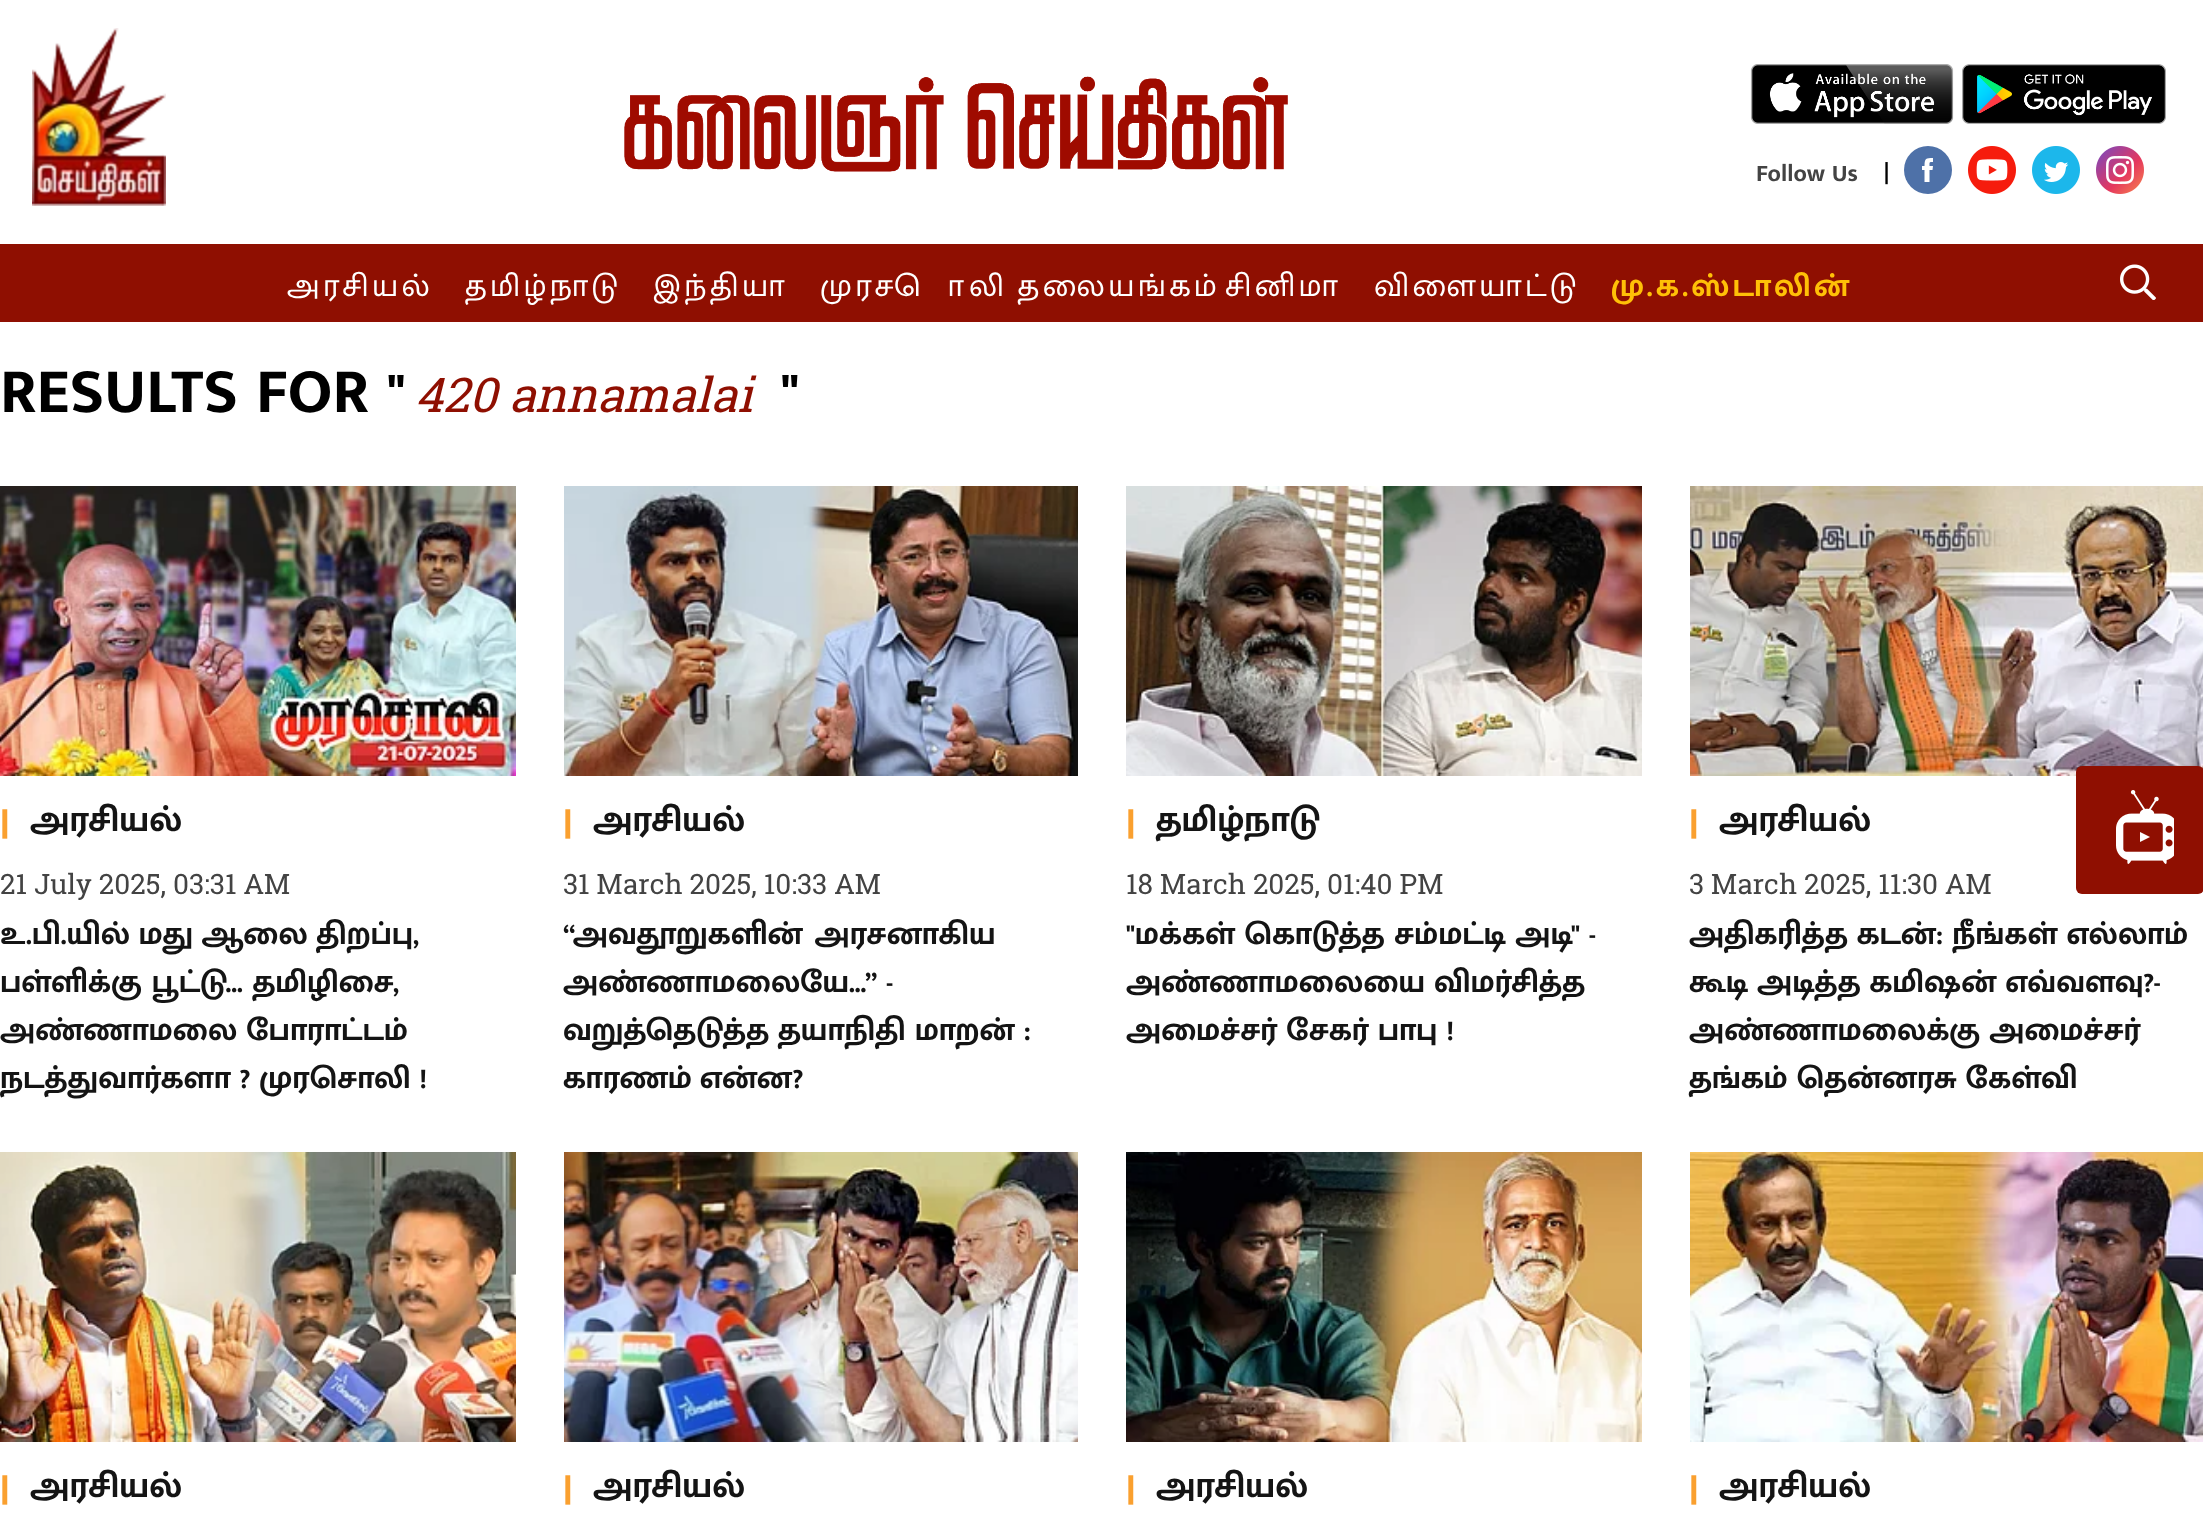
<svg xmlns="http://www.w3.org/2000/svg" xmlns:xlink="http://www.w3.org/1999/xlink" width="2203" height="1531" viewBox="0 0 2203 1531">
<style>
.cls-1{font:bold 24px Mukta Malar;fill:#434343}
.cls-2{font:32px Mukta Malar;fill:#000000}
.cls-3{font:32px Mukta Malar;letter-spacing:3.4px;fill:#ffffff}
.cls-4{font:bold 32px Mukta Malar;letter-spacing:3.4px;fill:#ffc007}
.cls-5{font:bold 64px Mukta Malar;fill:#000000}
.cls-6{font:italic 48px Roboto Slab;fill:#8f0f01}
.cls-7{font:bold 40px Mukta Malar;fill:#faa02f}
.cls-8{font:bold 36px Mukta Malar;fill:#141414}
.cls-9{font:28px Roboto Slab;fill:#434343}
.cls-10{font:bold 32px Mukta Malar;fill:#141414}
</style>
<rect width="100%" height="100%" fill="#ffffff"/>
<image xlink:href="image0.png" x="32" y="28" width="134" height="178"/>
<image xlink:href="image1.png" x="624" y="76" width="664" height="96"/>
<image xlink:href="image2.png" x="1750" y="64" width="204" height="60"/>
<image xlink:href="image3.png" x="1962" y="64" width="204" height="60"/>
<circle fill="#4e71a8" cx="1928" cy="170" r="24"/>
<image xlink:href="image4.png" x="1968" y="146" width="48" height="48"/>
<image xlink:href="image5.png" x="2032" y="146" width="48" height="48"/>
<image xlink:href="image6.png" x="2096" y="146" width="48" height="48"/>
<path fill="#ffffff" d="M1929.5 182V170H1932.5L1933 166H1929.5C1929.5 162 1929 162 1933 162V158C1926 158 1924.5 158 1924.5 166H1922V170H1924.5V182Z"/>
<rect fill="#8f0f01" x="0" y="244" width="2203" height="78"/>
<image xlink:href="image7.png" x="2120" y="264" width="36" height="36"/>
<image xlink:href="image8.png" x="0" y="486" width="516" height="290"/>
<image xlink:href="image9.png" x="564" y="486" width="514" height="290"/>
<image xlink:href="image10.png" x="1126" y="486" width="516" height="290"/>
<image xlink:href="image11.png" x="1690" y="486" width="513" height="290"/>
<image xlink:href="image12.png" x="0" y="1152" width="516" height="290"/>
<image xlink:href="image13.png" x="564" y="1152" width="514" height="290"/>
<image xlink:href="image14.png" x="1126" y="1152" width="516" height="290"/>
<image xlink:href="image15.png" x="1690" y="1152" width="513" height="290"/>
<rect fill="#8f0f01" x="2076" y="766" width="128" height="128" rx="6"/>
<image xlink:href="image16.png" x="2116" y="790" width="58" height="74"/>
<text class="cls-1" x="1756" y="181">Follow Us</text>
<text class="cls-2" x="1883" y="181">|</text>
<text class="cls-3" x="287" y="296">அரசியல்</text>
<text class="cls-3" x="465" y="296">தமிழ்நாடு</text>
<text class="cls-3" x="653" y="296">இந்தியா</text>
<text class="cls-3" x="820" y="296" word-spacing="-2">முரசொலி தலையங்கம்</text>
<text class="cls-3" x="1225" y="296">சினிமா</text>
<text class="cls-3" x="1374" y="296">விளையாட்டு</text>
<text class="cls-4" x="1611" y="296">மு.க.ஸ்டாலின்</text>
<text class="cls-5" x="0" y="412">RESULTS FOR "</text>
<text class="cls-6" x="415" y="412">420 annamalai</text>
<text class="cls-5" x="781" y="412">"</text>
<text class="cls-7" x="0" y="834">|</text>
<text class="cls-8" x="30" y="831">அரசியல்</text>
<text class="cls-9" x="0" y="894">21 July 2025, 03:31 AM</text>
<text class="cls-10"><tspan x="0" y="944" word-spacing="-0.5">உ.பி.யில் மது ஆலை திறப்பு,</tspan><tspan x="0" y="992" word-spacing="1">பள்ளிக்கு பூட்டு... தமிழிசை,</tspan><tspan x="0" y="1040">அண்ணாமலை போராட்டம்</tspan><tspan x="0" y="1088">நடத்துவார்களா ? முரசொலி !</tspan></text>
<text class="cls-7" x="563" y="834">|</text>
<text class="cls-8" x="593" y="831">அரசியல்</text>
<text class="cls-9" x="563" y="894">31 March 2025, 10:33 AM</text>
<text class="cls-10"><tspan x="563" y="944" word-spacing="3">“அவதூறுகளின் அரசனாகிய</tspan><tspan x="563" y="992">அண்ணாமலையே...” -</tspan><tspan x="563" y="1040">வறுத்தெடுத்த தயாநிதி மாறன் :</tspan><tspan x="563" y="1088" word-spacing="-1">காரணம் என்ன?</tspan></text>
<text class="cls-7" x="1126" y="834">|</text>
<text class="cls-8" x="1156" y="831">தமிழ்நாடு</text>
<text class="cls-9" x="1126" y="894">18 March 2025, 01:40 PM</text>
<text class="cls-10"><tspan x="1126" y="944" word-spacing="0.5">"மக்கள் கொடுத்த சம்மட்டி அடி" -</tspan><tspan x="1126" y="992">அண்ணாமலையை விமர்சித்த</tspan><tspan x="1126" y="1040">அமைச்சர் சேகர் பாபு !</tspan></text>
<text class="cls-7" x="1689" y="834">|</text>
<text class="cls-8" x="1719" y="831">அரசியல்</text>
<text class="cls-9" x="1689" y="894">3 March 2025, 11:30 AM</text>
<text class="cls-10"><tspan x="1689" y="944">அதிகரித்த கடன்: நீங்கள் எல்லாம்</tspan><tspan x="1689" y="992">கூடி அடித்த கமிஷன் எவ்வளவு?-</tspan><tspan x="1689" y="1040">அண்ணாமலைக்கு அமைச்சர்</tspan><tspan x="1689" y="1088">தங்கம் தென்னரசு கேள்வி</tspan></text>
<text class="cls-7" x="0" y="1500">|</text>
<text class="cls-8" x="30" y="1497">அரசியல்</text>
<text class="cls-7" x="563" y="1500">|</text>
<text class="cls-8" x="593" y="1497">அரசியல்</text>
<text class="cls-7" x="1126" y="1500">|</text>
<text class="cls-8" x="1156" y="1497">அரசியல்</text>
<text class="cls-7" x="1689" y="1500">|</text>
<text class="cls-8" x="1719" y="1497">அரசியல்</text>
</svg>
